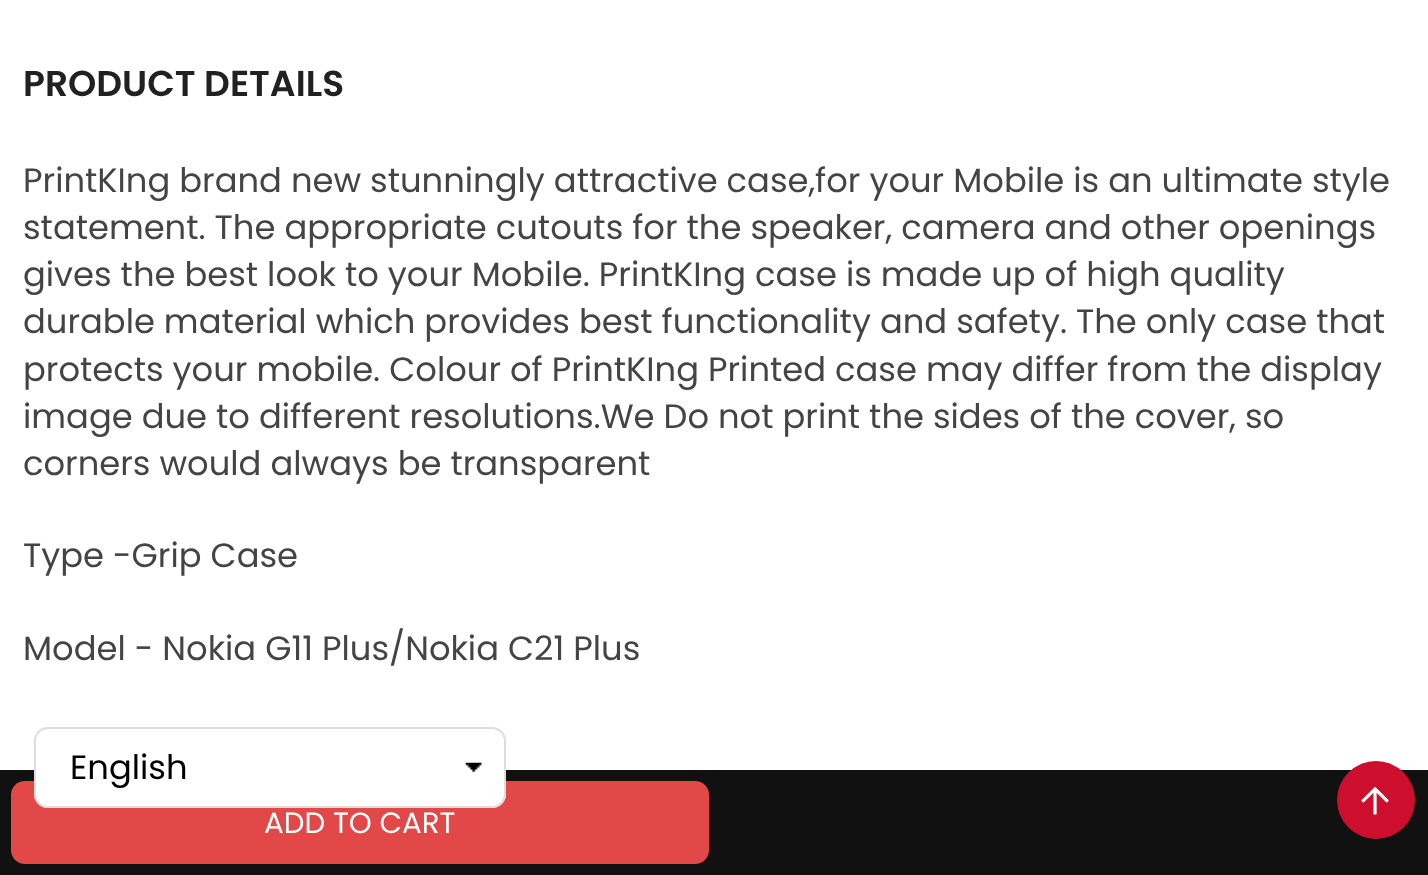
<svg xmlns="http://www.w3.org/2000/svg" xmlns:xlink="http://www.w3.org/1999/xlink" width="1428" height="875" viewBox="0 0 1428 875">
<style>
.cls-1{font:600 36px Poppins;fill:#212121}
.cls-2{font:33.75px Poppins;fill:#444444}
.cls-3{font:29.25px Poppins;fill:#ffffff}
.cls-4{font:33.75px Poppins;fill:#000000}
</style>
<rect width="100%" height="100%" fill="#ffffff"/>
<rect fill="#111111" x="0" y="770" width="1428" height="105"/>
<rect fill="#e34848" x="11" y="781" width="698" height="83" rx="14"/>
<rect fill="#ffffff" x="34" y="727" width="472" height="81" rx="14"/>
<image xlink:href="image0.png" x="465" y="762" width="17" height="10"/>
<rect fill="none" stroke="#dddddd" stroke-width="2" x="35" y="728" width="470" height="79" rx="13"/>
<circle fill="#ce0e2d" cx="1376" cy="800" r="39"/>
<image xlink:href="image1.png" x="1361" y="787" width="28" height="28"/>
<text class="cls-1" x="23" y="96">PRODUCT DETAILS</text>
<text class="cls-2"><tspan x="23" y="192">PrintKIng brand new stunningly attractive case,for your Mobile is an ultimate style</tspan><tspan x="23" y="239">statement. The appropriate cutouts for the speaker, camera and other openings</tspan><tspan x="23" y="286">gives the best look to your Mobile. PrintKIng case is made up of high quality</tspan><tspan x="23" y="333">durable material which provides best functionality and safety. The only case that</tspan><tspan x="23" y="381">protects your mobile. Colour of PrintKIng Printed case may differ from the display</tspan><tspan x="23" y="428">image due to different resolutions.We Do not print the sides of the cover, so</tspan><tspan x="23" y="475">corners would always be transparent</tspan></text>
<text class="cls-2" x="23" y="567">Type -Grip Case</text>
<text class="cls-2" x="23" y="660">Model - Nokia G11 Plus/Nokia C21 Plus</text>
<text class="cls-3" x="264" y="833">ADD TO CART</text>
<text class="cls-4" x="70" y="779">English</text>
</svg>
